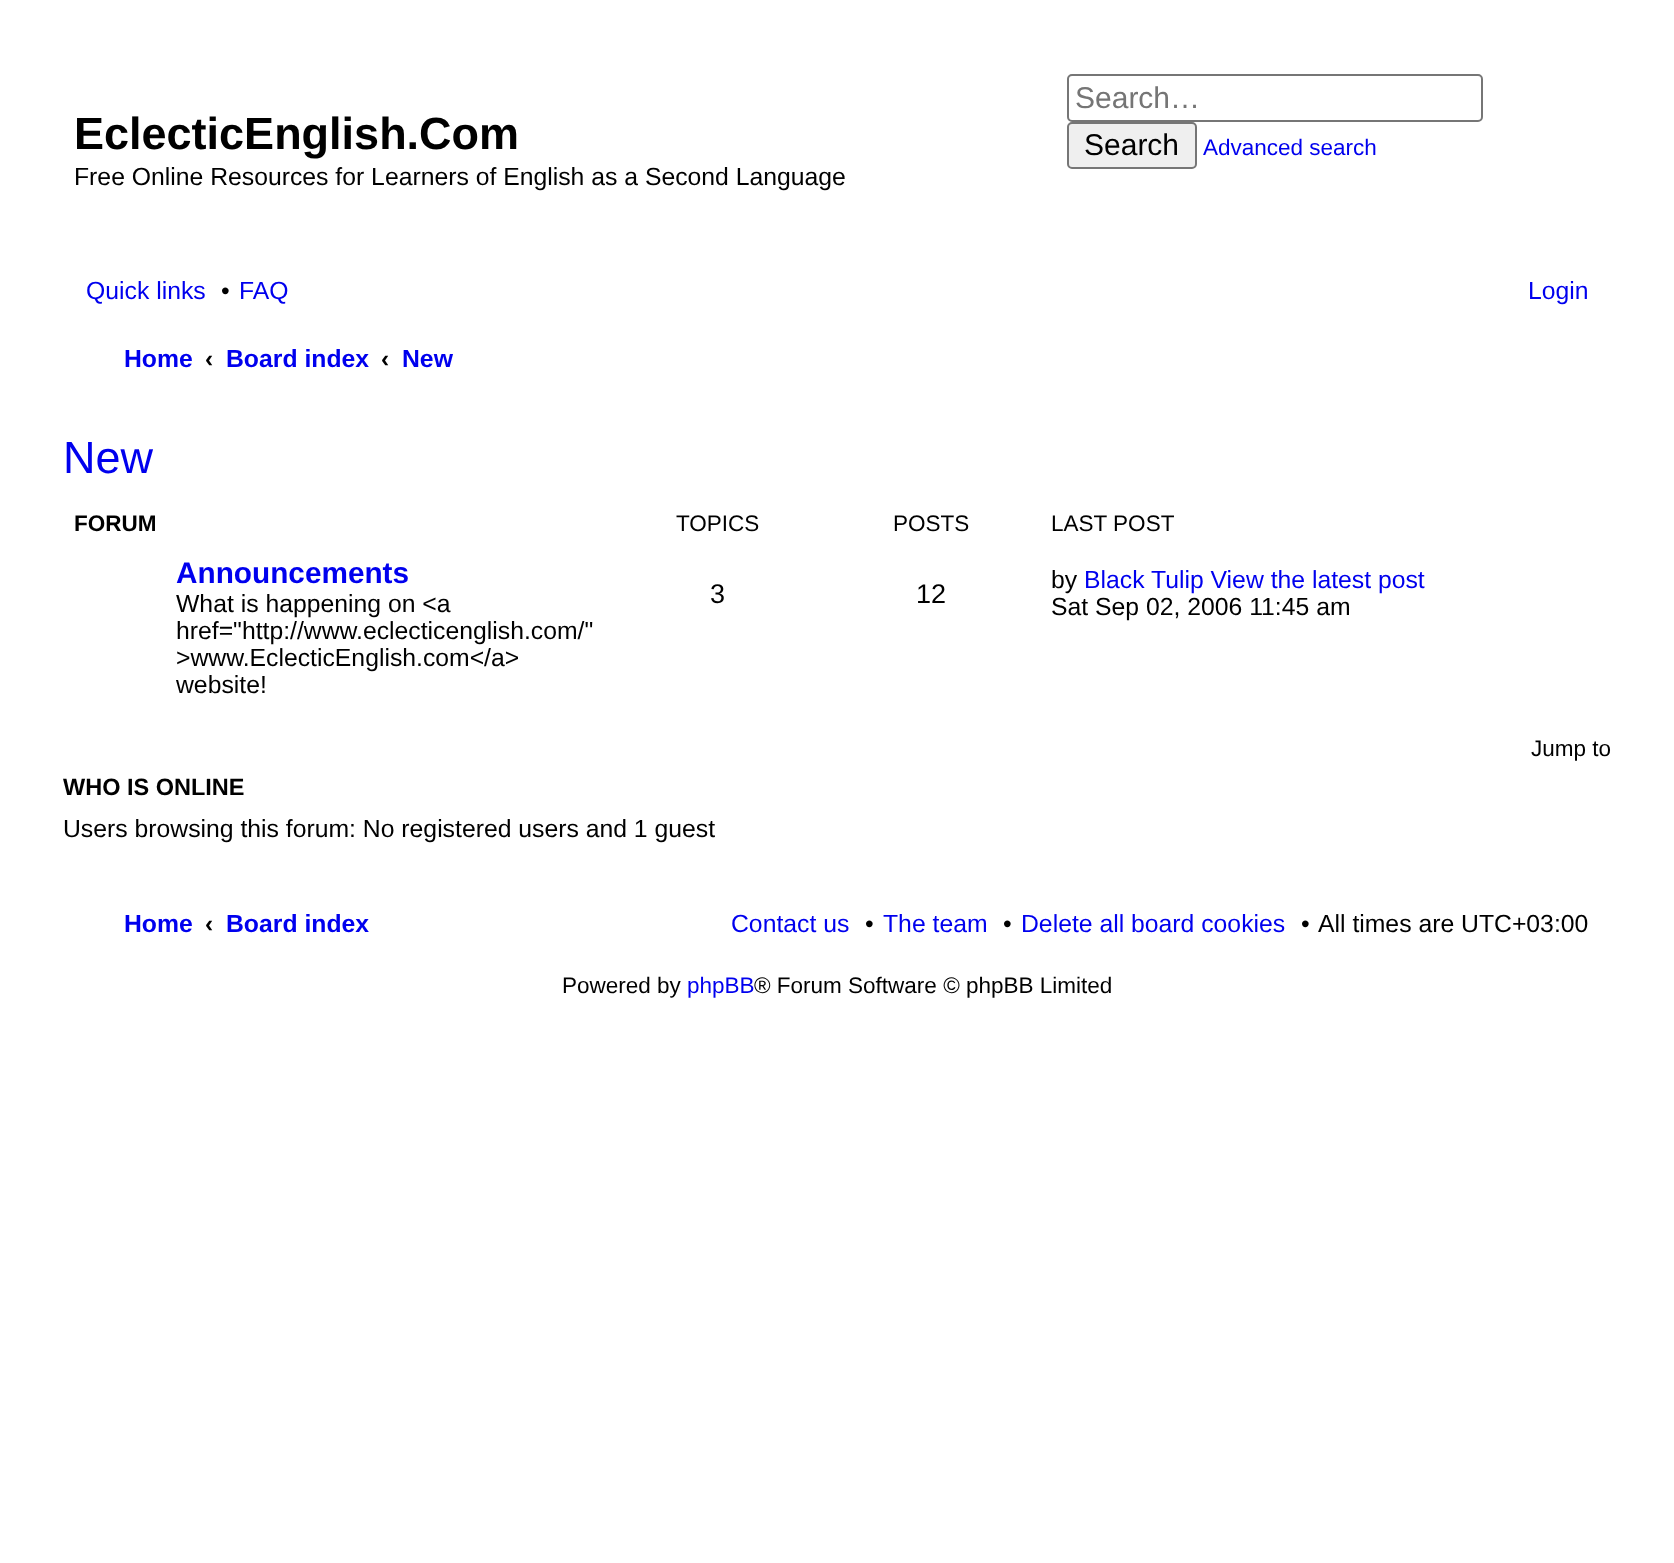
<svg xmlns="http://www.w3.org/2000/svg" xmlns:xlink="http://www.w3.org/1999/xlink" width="1674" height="1563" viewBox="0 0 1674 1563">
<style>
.cls-1{font:bold 45px Liberation Sans;fill:#000000}
.cls-2{font:24.75px Liberation Sans;fill:#000000}
.cls-3{font:30px Liberation Sans;fill:#757575}
.cls-4{font:30px Liberation Sans;fill:#000000}
.cls-5{font:22.5px Liberation Sans;fill:#0000ee}
.cls-6{font:24.75px Liberation Sans;fill:#0000ee}
.cls-7{font:bold 24.75px Liberation Sans;fill:#0000ee}
.cls-8{font:bold 24.75px Liberation Sans;fill:#000000}
.cls-9{font:45px Liberation Sans;fill:#0000ee}
.cls-10{font:bold 22.5px Liberation Sans;fill:#000000}
.cls-11{font:22.5px Liberation Sans;fill:#000000}
.cls-12{font:bold 29.75px Liberation Sans;fill:#0000ee}
.cls-13{font:27px Liberation Sans;fill:#000000}
.cls-14{font:bold 23.5px Liberation Sans;fill:#000000}
</style>
<rect width="100%" height="100%" fill="#ffffff"/>
<rect fill="none" stroke="#767676" stroke-width="2" x="1068" y="75" width="414" height="46" rx="4"/>
<rect fill="#efefef" stroke="#767676" stroke-width="2" x="1068" y="123" width="128" height="45" rx="4"/>
<text class="cls-1" x="74" y="149">EclecticEnglish.Com</text>
<text class="cls-2" x="74" y="185">Free Online Resources for Learners of English as a Second Language</text>
<text class="cls-3" x="1075" y="108">Search…</text>
<text class="cls-4" x="1084" y="155">Search</text>
<text class="cls-5" x="1203" y="155">Advanced search</text>
<text class="cls-6" x="86" y="299">Quick links</text>
<text class="cls-2" x="221" y="299">•</text>
<text class="cls-6" x="239" y="299">FAQ</text>
<text class="cls-6" x="1528" y="299">Login</text>
<text class="cls-7" x="124" y="367">Home</text>
<text class="cls-8" x="205" y="367">‹</text>
<text class="cls-7" x="226" y="367">Board index</text>
<text class="cls-8" x="381" y="367">‹</text>
<text class="cls-7" x="402" y="367">New</text>
<text class="cls-9" x="63" y="473">New</text>
<text class="cls-10" x="74" y="531">FORUM</text>
<text class="cls-11" x="676" y="531">TOPICS</text>
<text class="cls-11" x="893" y="531">POSTS</text>
<text class="cls-11" x="1051" y="531">LAST POST</text>
<text class="cls-12" x="176" y="583">Announcements</text>
<text class="cls-2"><tspan x="176" y="612">What is happening on &lt;a</tspan><tspan x="176" y="639">href="http://www.eclecticenglish.com/"</tspan><tspan x="176" y="666">&gt;www.EclecticEnglish.com&lt;/a&gt;</tspan><tspan x="176" y="693">website!</tspan></text>
<text class="cls-13" x="710" y="603">3</text>
<text class="cls-13" x="916" y="603">12</text>
<text class="cls-2" x="1051" y="588">by</text>
<text class="cls-6" x="1084" y="588">Black Tulip View the latest post</text>
<text class="cls-2" x="1051" y="615">Sat Sep 02, 2006 11:45 am</text>
<text class="cls-11" x="1531" y="756">Jump to</text>
<text class="cls-14" x="63" y="795">WHO IS ONLINE</text>
<text class="cls-2" x="63" y="837">Users browsing this forum: No registered users and 1 guest</text>
<text class="cls-7" x="124" y="932">Home</text>
<text class="cls-8" x="205" y="932">‹</text>
<text class="cls-7" x="226" y="932">Board index</text>
<text class="cls-6" x="731" y="932">Contact us</text>
<text class="cls-2" x="865" y="932">•</text>
<text class="cls-6" x="883" y="932">The team</text>
<text class="cls-2" x="1003" y="932">•</text>
<text class="cls-6" x="1021" y="932">Delete all board cookies</text>
<text class="cls-2" x="1301" y="932">•</text>
<text class="cls-2" x="1318" y="932">All times are UTC+03:00</text>
<text class="cls-11" x="562" y="993">Powered by</text>
<text class="cls-5" x="687" y="993">phpBB</text>
<text class="cls-11" x="754" y="993">® Forum Software © phpBB Limited</text>
</svg>
